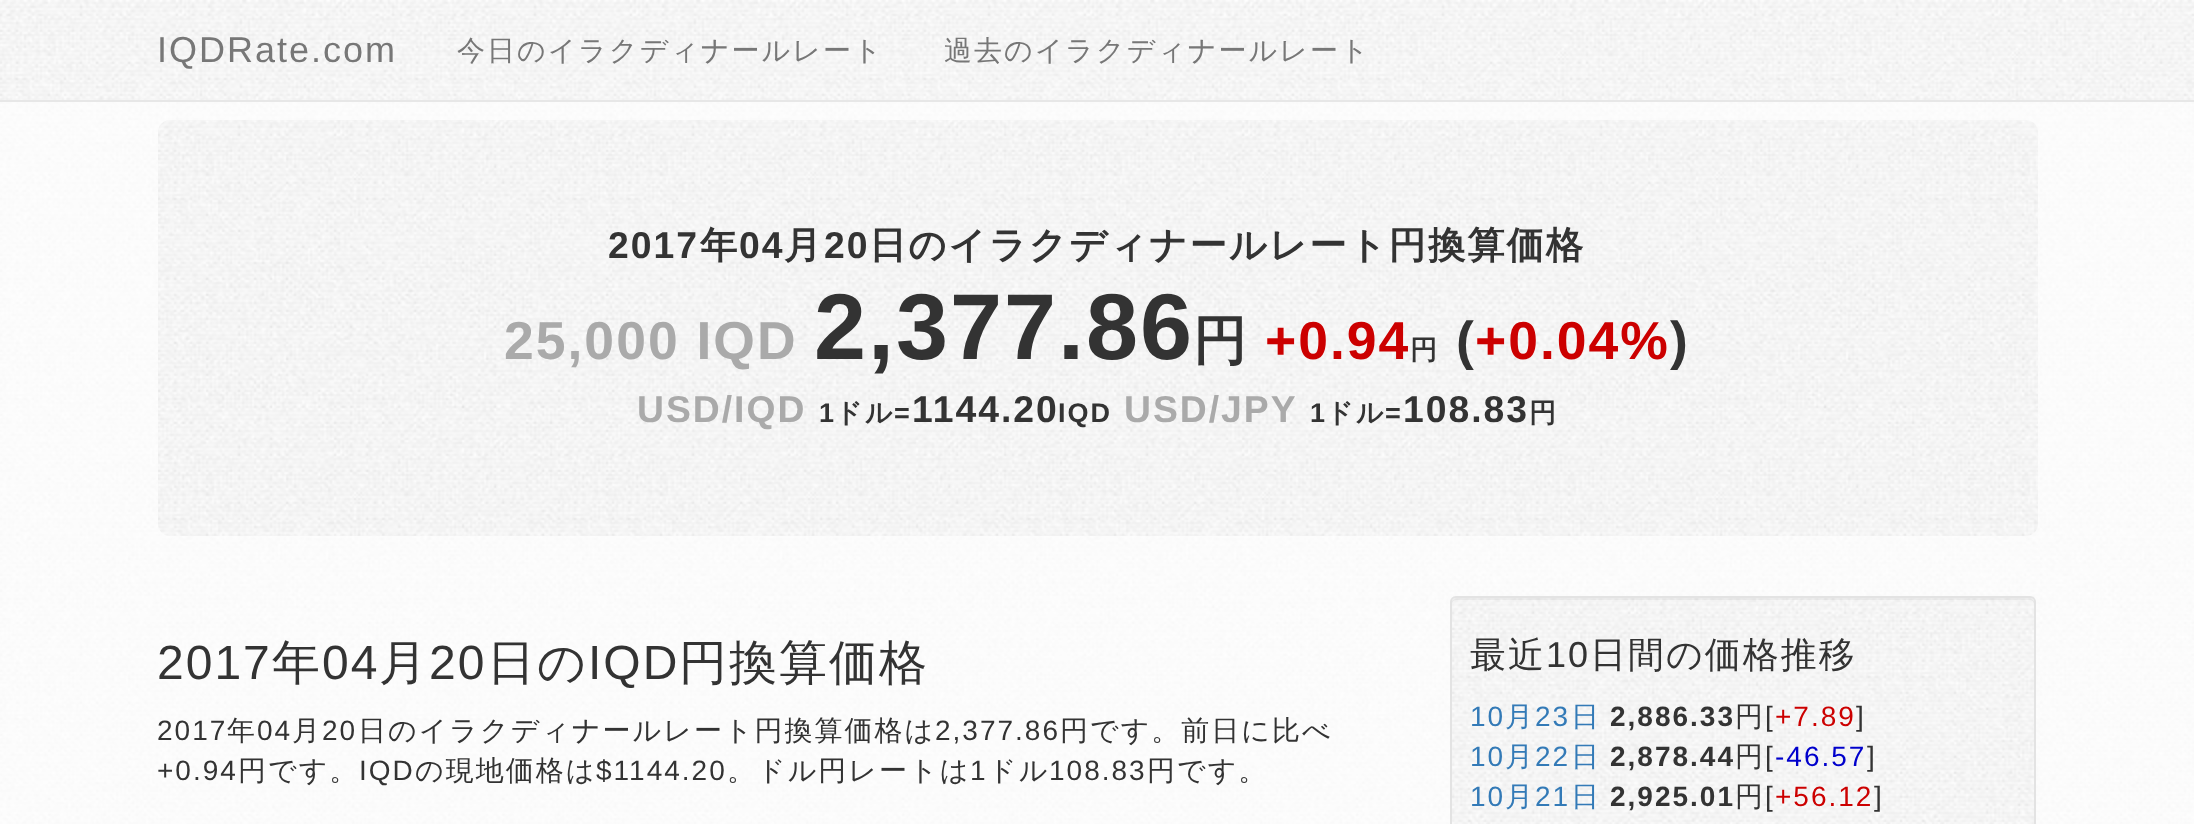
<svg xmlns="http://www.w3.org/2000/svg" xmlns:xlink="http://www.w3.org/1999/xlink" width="2194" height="824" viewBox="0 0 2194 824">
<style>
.cls-1{font:36px Liberation Sans;letter-spacing:2px;fill:#777777}
.cls-2{font:500 28px WenQuanYi Zen Hei;letter-spacing:2px;fill:#777777}
.cls-3{font:bold 37.3px Liberation Sans;letter-spacing:2px;fill:#333333}
.cls-4{font:bold 37.3px WenQuanYi Zen Hei;letter-spacing:2px;fill:#333333}
.cls-5{font:bold 53.5px Liberation Sans;letter-spacing:2px;fill:#aaaaaa}
.cls-6{font:bold 93.5px Liberation Sans;letter-spacing:2px;fill:#333333}
.cls-7{font:bold 53.5px WenQuanYi Zen Hei;letter-spacing:2px;fill:#333333}
.cls-8{font:bold 53.5px Liberation Sans;letter-spacing:2px;fill:#cc0000}
.cls-9{font:bold 27px WenQuanYi Zen Hei;letter-spacing:2px;fill:#333333}
.cls-10{font:bold 53.5px Liberation Sans;letter-spacing:2px;fill:#333333}
.cls-11{font:bold 37.3px Liberation Sans;letter-spacing:2px;fill:#aaaaaa}
.cls-12{font:bold 27px Liberation Sans;letter-spacing:2px;fill:#333333}
.cls-13{font:48px Liberation Sans;letter-spacing:2px;fill:#333333}
.cls-14{font:500 48px WenQuanYi Zen Hei;letter-spacing:2px;fill:#333333}
.cls-15{font:28px Liberation Sans;letter-spacing:2px;fill:#333333}
.cls-16{font:500 28px WenQuanYi Zen Hei;letter-spacing:2px;fill:#333333}
.cls-17{font:500 36px WenQuanYi Zen Hei;letter-spacing:2px;fill:#333333}
.cls-18{font:36px Liberation Sans;letter-spacing:2px;fill:#333333}
.cls-19{font:28px Liberation Sans;letter-spacing:2px;fill:#337ab7}
.cls-20{font:500 28px WenQuanYi Zen Hei;letter-spacing:2px;fill:#337ab7}
.cls-21{font:bold 28px Liberation Sans;letter-spacing:2px;fill:#333333}
.cls-22{font:28px Liberation Sans;letter-spacing:2px;fill:#cc0000}
.cls-23{font:28px Liberation Sans;letter-spacing:2px;fill:#0000cc}
</style>
<rect width="100%" height="100%" fill="#ffffff"/>
<image xlink:href="image0.png" x="0" y="102" width="2194" height="722"/>
<image xlink:href="image1.png" x="0" y="0" width="2194" height="100"/>
<rect fill="#e7e7e7" x="0" y="100" width="2194" height="2"/>
<image xlink:href="image2.png" x="158" y="120" width="1880" height="416"/>
<image xlink:href="image3.png" x="1450" y="596" width="586" height="228"/>
<path fill="#000000" fill-opacity="0.05" d="M1456 600H2030C2032 600 2034 602 2034 604V602C2034 600 2032 598 2030 598H1456C1454 598 1452 600 1452 602V604C1452 602 1454 600 1456 600Z"/>
<rect fill="none" stroke="#e3e3e3" stroke-width="2" x="1451" y="597" width="584" height="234" rx="5"/>
<text class="cls-1" x="157" y="62">IQDRate.com</text>
<text class="cls-2" x="457" y="60">今日のイラクディナールレート</text>
<text class="cls-2" x="944" y="60">過去のイラクディナールレート</text>
<text class="cls-3" x="608" y="258">2017</text>
<text class="cls-4" x="700" y="258">年</text>
<text class="cls-3" x="739" y="258">04</text>
<text class="cls-4" x="784" y="258">月</text>
<text class="cls-3" x="824" y="258">20</text>
<text class="cls-4" x="869" y="258">日のイラクディナールレート円換算価格</text>
<text class="cls-5" x="504" y="359">25,000 IQD</text>
<text class="cls-6" x="814" y="359">2,377.86</text>
<text class="cls-7" x="1193" y="359">円</text>
<text class="cls-8" x="1265" y="359">+0.94</text>
<text class="cls-9" x="1410" y="359">円</text>
<text class="cls-10" x="1456" y="359">(</text>
<text class="cls-8" x="1475" y="359">+0.04%</text>
<text class="cls-10" x="1670" y="359">)</text>
<text class="cls-11" x="637" y="422">USD/IQD</text>
<text class="cls-12" x="819" y="422">1</text>
<text class="cls-9" x="835" y="422">ドル</text>
<text class="cls-12" x="894" y="422">=</text>
<text class="cls-3" x="912" y="422">1144.20</text>
<text class="cls-12" x="1058" y="422">IQD</text>
<text class="cls-11" x="1124" y="422">USD/JPY</text>
<text class="cls-12" x="1310" y="422">1</text>
<text class="cls-9" x="1326" y="422">ドル</text>
<text class="cls-12" x="1385" y="422">=</text>
<text class="cls-3" x="1403" y="422">108.83</text>
<text class="cls-9" x="1529" y="422">円</text>
<text class="cls-13" x="157" y="679">2017</text>
<text class="cls-14" x="272" y="679">年</text>
<text class="cls-13" x="322" y="679">04</text>
<text class="cls-14" x="379" y="679">月</text>
<text class="cls-13" x="429" y="679">20</text>
<text class="cls-14" x="487" y="679">日の</text>
<text class="cls-13" x="588" y="679">IQD</text>
<text class="cls-14" x="679" y="679">円換算価格</text>
<text class="cls-15" x="157" y="740">2017</text>
<text class="cls-16" x="227" y="740">年</text>
<text class="cls-15" x="257" y="740">04</text>
<text class="cls-16" x="292" y="740">月</text>
<text class="cls-15" x="322" y="740">20</text>
<text class="cls-16" x="358" y="740">日のイラクディナールレート円換算価格は</text>
<text class="cls-15" x="935" y="740">2,377.86</text>
<text class="cls-16" x="1060" y="740">円です。前日に比べ</text>
<text class="cls-15" x="157" y="780">+0.94</text>
<text class="cls-16" x="238" y="780">円です。</text>
<text class="cls-15" x="359" y="780">IQD</text>
<text class="cls-16" x="415" y="780">の現地価格は</text>
<text class="cls-15" x="596" y="780">$1144.20</text>
<text class="cls-16" x="727" y="780">。ドル円レートは</text>
<text class="cls-15" x="970" y="780">1</text>
<text class="cls-16" x="988" y="780">ドル</text>
<text class="cls-15" x="1049" y="780">108.83</text>
<text class="cls-16" x="1147" y="780">円です。</text>
<text class="cls-17" x="1470" y="667">最近</text>
<text class="cls-18" x="1546" y="667">10</text>
<text class="cls-17" x="1590" y="667">日間の価格推移</text>
<text class="cls-19" x="1470" y="726">10</text>
<text class="cls-20" x="1505" y="726">月</text>
<text class="cls-19" x="1535" y="726">23</text>
<text class="cls-20" x="1571" y="726">日</text>
<text class="cls-21" x="1610" y="726">2,886.33</text>
<text class="cls-16" x="1735" y="726">円</text>
<text class="cls-15" x="1765" y="726">[</text>
<text class="cls-22" x="1775" y="726">+7.89</text>
<text class="cls-15" x="1856" y="726">]</text>
<text class="cls-19" x="1470" y="766">10</text>
<text class="cls-20" x="1505" y="766">月</text>
<text class="cls-19" x="1535" y="766">22</text>
<text class="cls-20" x="1571" y="766">日</text>
<text class="cls-21" x="1610" y="766">2,878.44</text>
<text class="cls-16" x="1735" y="766">円</text>
<text class="cls-15" x="1765" y="766">[</text>
<text class="cls-23" x="1775" y="766">-46.57</text>
<text class="cls-15" x="1867" y="766">]</text>
<text class="cls-19" x="1470" y="806">10</text>
<text class="cls-20" x="1505" y="806">月</text>
<text class="cls-19" x="1535" y="806">21</text>
<text class="cls-20" x="1571" y="806">日</text>
<text class="cls-21" x="1610" y="806">2,925.01</text>
<text class="cls-16" x="1735" y="806">円</text>
<text class="cls-15" x="1765" y="806">[</text>
<text class="cls-22" x="1775" y="806">+56.12</text>
<text class="cls-15" x="1874" y="806">]</text>
</svg>
